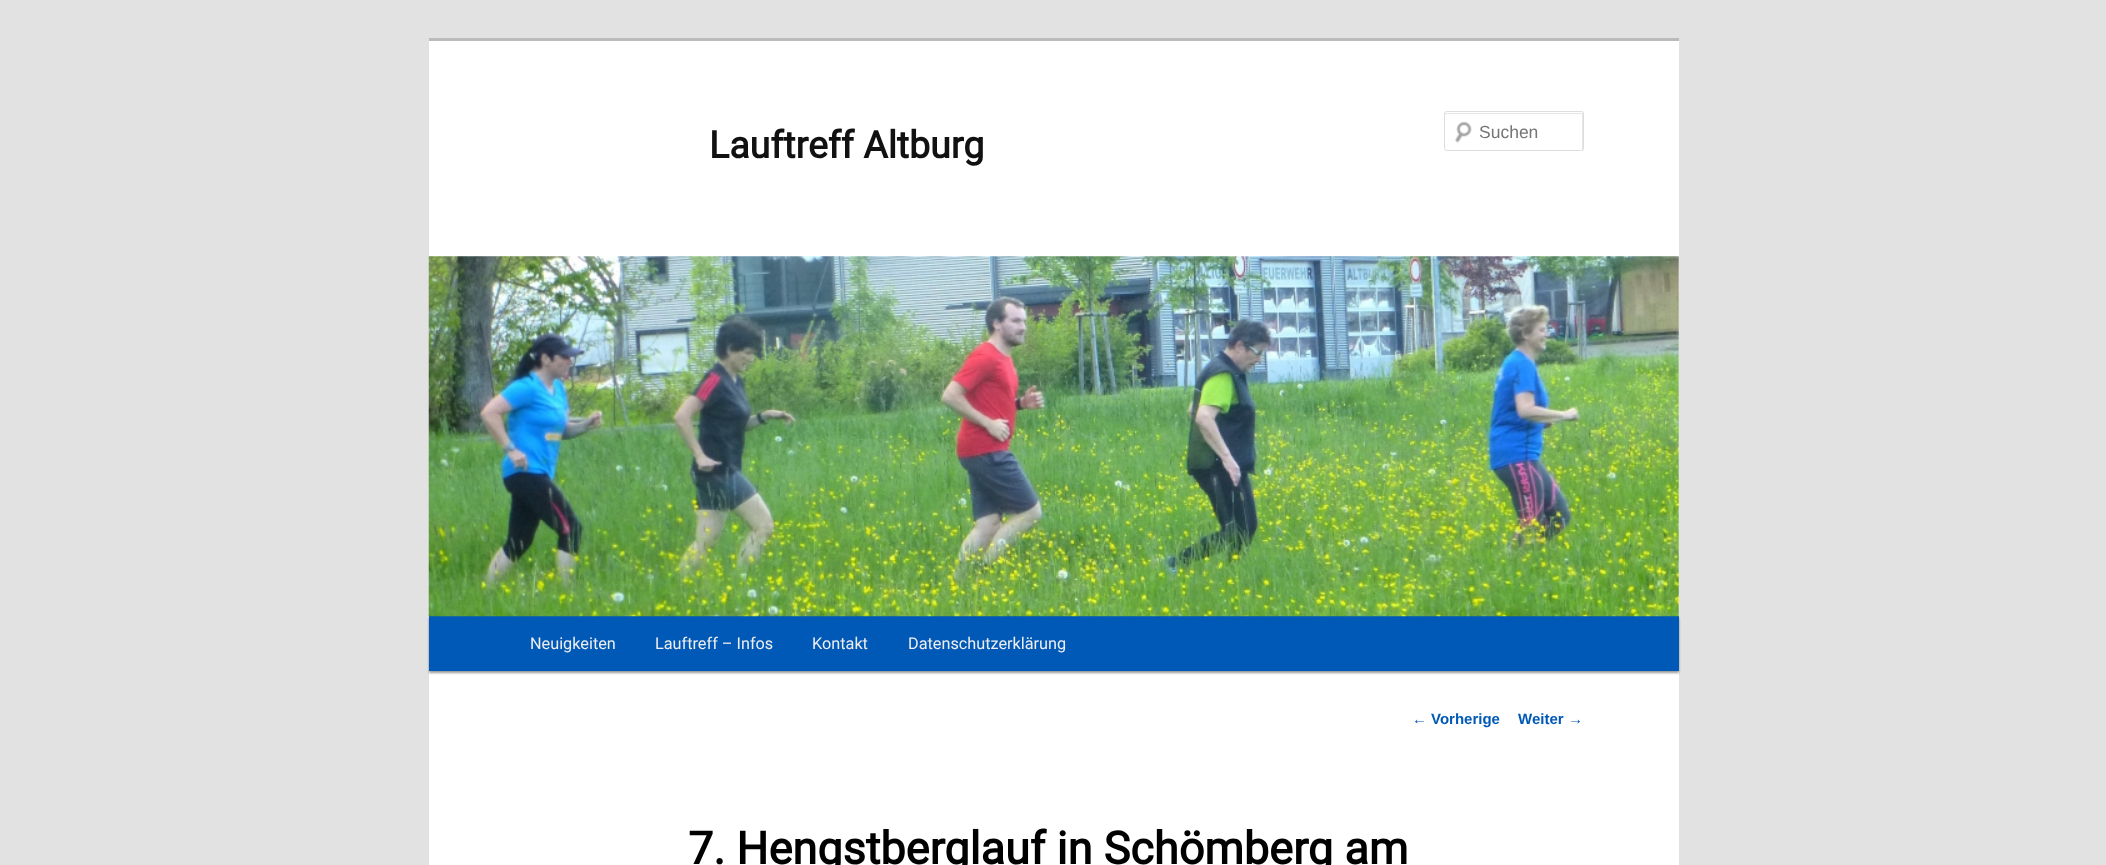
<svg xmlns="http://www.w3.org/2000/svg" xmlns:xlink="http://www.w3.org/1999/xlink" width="2106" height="865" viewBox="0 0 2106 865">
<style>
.cls-1{font:bold 37.5px Roboto;fill:#111111}
.cls-2{font:17.5px Liberation Sans;fill:#757575}
.cls-3{font:16.25px Roboto;fill:#eeeeee}
.cls-4{font:15px Liberation Sans;fill:#0059b7}
.cls-5{font:bold 15px Liberation Sans;fill:#0059b7}
.cls-6{font:bold 45px Roboto;fill:#000000}
</style>
<rect width="100%" height="100%" fill="#e2e2e2"/>
<rect fill="#ffffff" x="429" y="41" width="1250" height="824"/>
<rect fill="#bbbbbb" x="429" y="38" width="1250" height="3"/>
<image xlink:href="image0.png" x="1455" y="121" width="17" height="22"/>
<path fill="#e6e6e6" d="M1446 114H1581C1582 114 1582 114 1582 115V150C1583 150 1583 150 1583 149V114C1583 113 1583 113 1582 113H1446C1445 113 1445 113 1445 114V115Z"/>
<rect fill="none" stroke="#dddddd" x="1444.5" y="111.5" width="139" height="39" rx="2"/>
<rect fill="#000000" fill-opacity="0.4" filter="blur(1px)" x="429" y="618" width="1250" height="55"/>
<rect fill="#0059b7" x="429" y="616" width="1250" height="55"/>
<image xlink:href="image1.png" x="428" y="256" width="1251" height="361"/>
<text class="cls-1" x="709" y="158">Lauftreff Altburg</text>
<text class="cls-2" x="1479" y="138">Suchen</text>
<text class="cls-3" x="530" y="649">Neuigkeiten</text>
<text class="cls-3" x="655" y="649">Lauftreff – Infos</text>
<text class="cls-3" x="812" y="649">Kontakt</text>
<text class="cls-3" x="908" y="649">Datenschutzerklärung</text>
<text class="cls-4" x="1412" y="724">←</text>
<text class="cls-5" x="1431" y="724">Vorherige</text>
<text class="cls-5" x="1518" y="724">Weiter</text>
<text class="cls-4" x="1568" y="724">→</text>
<text class="cls-6" x="688" y="864">7. Hengstberglauf in Schömberg am</text>
</svg>
